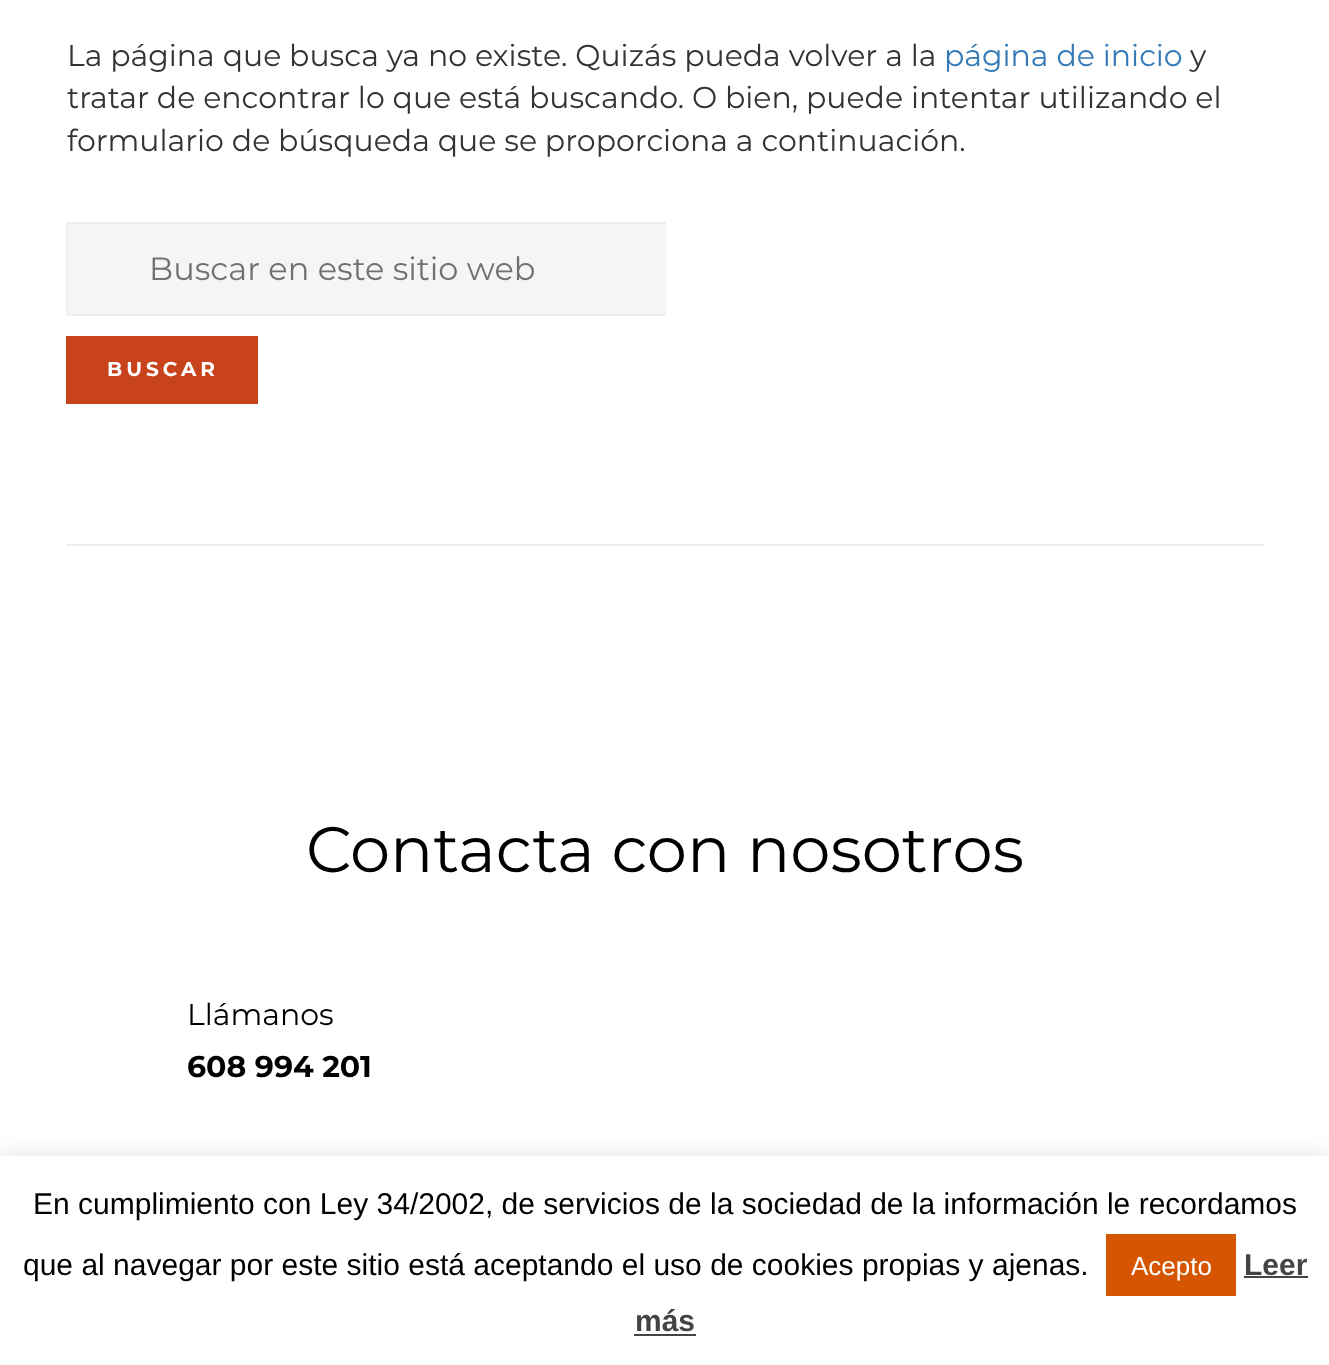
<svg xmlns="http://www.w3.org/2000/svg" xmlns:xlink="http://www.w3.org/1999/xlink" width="1329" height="1365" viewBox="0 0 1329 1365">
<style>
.cls-1{font:30px Montserrat;fill:#333333}
.cls-2{font:30px Montserrat;fill:#337ab7}
.cls-3{font:32px Montserrat;fill:#717171}
.cls-4{font:bold 20px Montserrat;letter-spacing:4px;fill:#ffffff}
.cls-5{font:64px Montserrat;fill:#000000}
.cls-6{font:30px Montserrat;fill:#000000}
.cls-7{font:bold 30px Montserrat;fill:#000000}
.cls-8{font:30px Liberation Sans;fill:#000000}
.cls-9{font:26px Liberation Sans;fill:#ffffff}
.cls-10{font:bold 30px Liberation Sans;fill:#444444}
</style>
<defs>
<clipPath id="clip1"><rect x="66" y="222" width="600" height="182"/></clipPath>
</defs>
<rect width="100%" height="100%" fill="#ffffff"/>
<rect fill="#eeeeee" x="66" y="544" width="1198" height="2"/>
<rect fill="#f5f5f5" x="68" y="224" width="598" height="90"/>
<g clip-path="url(#clip1)">
<rect fill="none" stroke="#eeeeee" stroke-width="2" x="67" y="223" width="722" height="92"/>
</g>
<rect fill="#c8421b" x="66" y="336" width="192" height="68"/>
<rect fill="#acabab" fill-opacity="0.3" filter="blur(10px)" x="0" y="1154" width="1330" height="210"/>
<rect fill="#ffffff" x="0" y="1156" width="1329" height="209"/>
<rect fill="#d65500" x="1106" y="1234" width="130" height="62"/>
<rect fill="#444444" x="1244" y="1276" width="64" height="2"/>
<rect fill="#444444" x="634" y="1334" width="62" height="2"/>
<text class="cls-1" x="67" y="66">La página que busca ya no existe. Quizás pueda volver a la</text>
<text class="cls-2" x="944" y="66">página de inicio</text>
<text class="cls-1" x="1190" y="66">y</text>
<text class="cls-1"><tspan x="67" y="108">tratar de encontrar lo que está buscando. O bien, puede intentar utilizando el</tspan><tspan x="67" y="151">formulario de búsqueda que se proporciona a continuación.</tspan></text>
<text class="cls-3" x="149" y="280">Buscar en este sitio web</text>
<text class="cls-4" x="107" y="376">BUSCAR</text>
<text class="cls-5" x="306" y="872">Contacta con nosotros</text>
<text class="cls-6" x="187" y="1025">Llámanos</text>
<text class="cls-7" x="187" y="1077">608 994 201</text>
<text class="cls-8" x="33" y="1214">En cumplimiento con Ley 34/2002, de servicios de la sociedad de la información le recordamos</text>
<text class="cls-8" x="23" y="1275">que al navegar por este sitio está aceptando el uso de cookies propias y ajenas.</text>
<text class="cls-9" x="1131" y="1275">Acepto</text>
<text class="cls-10" x="1244" y="1275">Leer</text>
<text class="cls-10" x="635" y="1331">más</text>
</svg>
